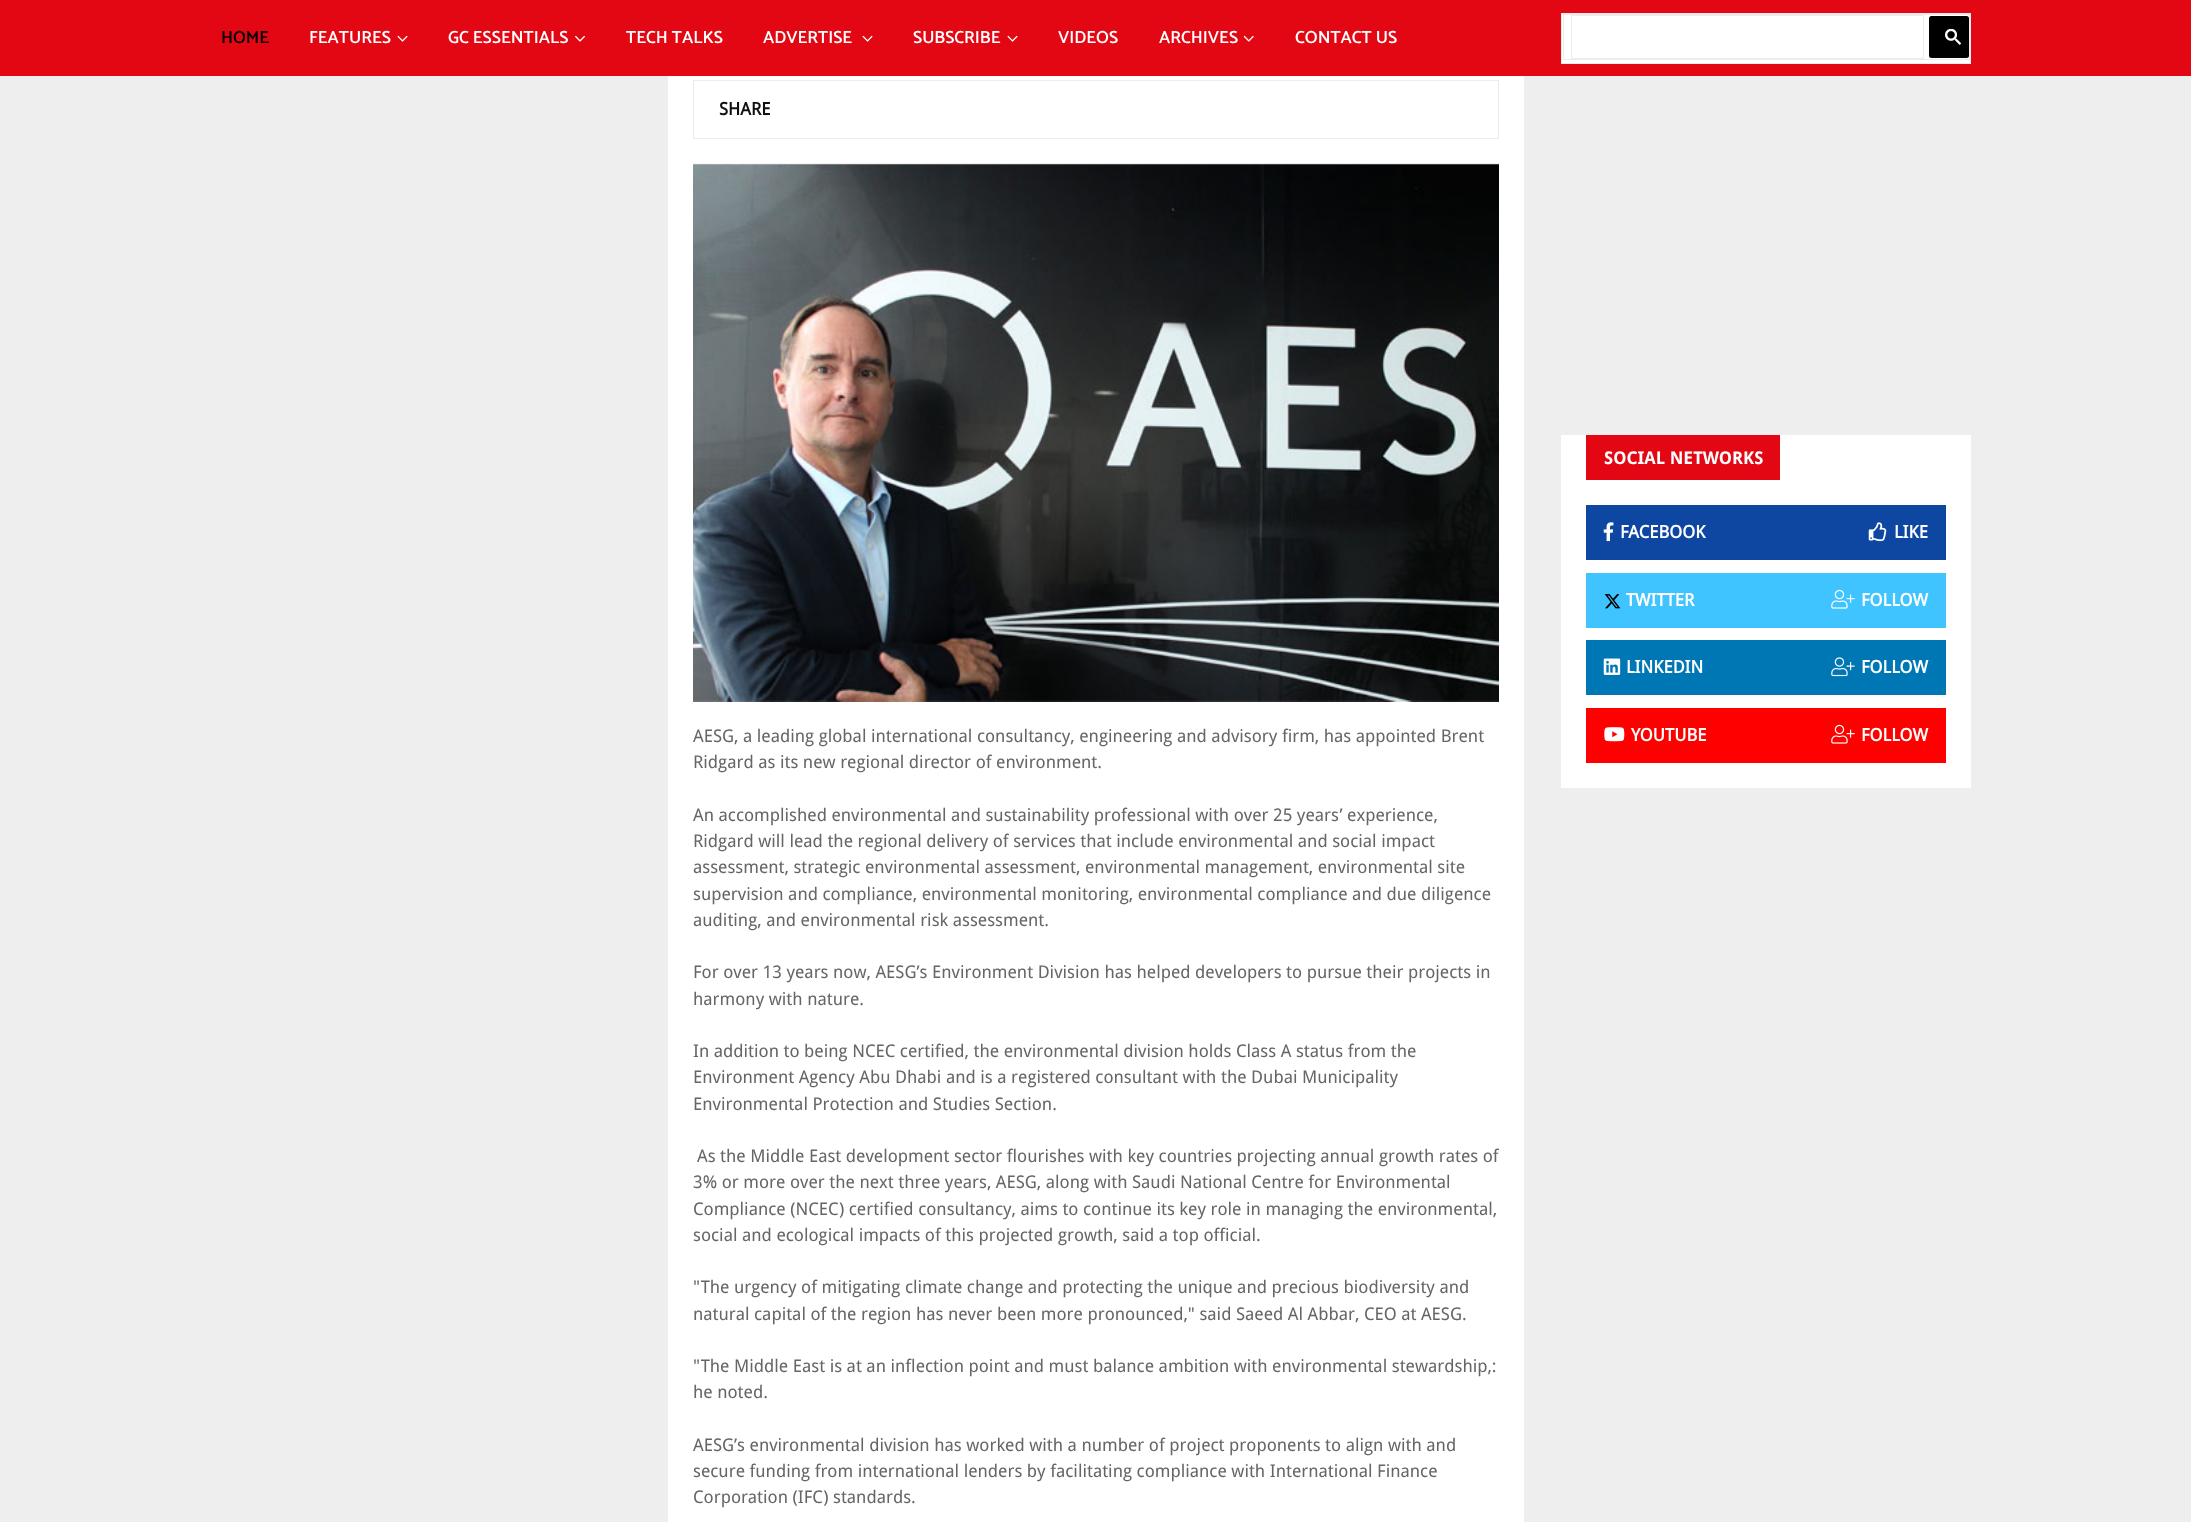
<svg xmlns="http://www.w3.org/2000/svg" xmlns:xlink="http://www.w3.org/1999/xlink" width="2191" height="1522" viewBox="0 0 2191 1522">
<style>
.cls-1{font:600 17.5px Catamaran;fill:#000000}
.cls-2{font:600 17.5px Catamaran;fill:#ffffff}
.cls-3{font:bold 17.5px Droid Sans;fill:#111111}
.cls-4{font:17.5px Droid Sans;fill:#666666}
.cls-5{font:bold 17.5px 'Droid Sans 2';fill:#ffffff}
.cls-6{font:bold 17.5px Droid Sans;fill:#ffffff}
</style>
<rect width="100%" height="100%" fill="#eeeeee"/>
<rect fill="#e30613" x="0" y="0" width="2191" height="76"/>
<image xlink:href="image0.png" x="397" y="35" width="11" height="7"/>
<image xlink:href="image1.png" x="575" y="35" width="10" height="7"/>
<image xlink:href="image0.png" x="862" y="35" width="11" height="7"/>
<image xlink:href="image0.png" x="1007" y="35" width="11" height="7"/>
<image xlink:href="image2.png" x="1243" y="35" width="11" height="7"/>
<rect fill="#ffffff" stroke="#ececec" x="1561.5" y="13.5" width="409" height="50"/>
<rect fill="#ececec" x="1563" y="14" width="407" height="1"/>
<rect fill="#ececec" x="1969" y="14" width="1" height="46"/>
<rect fill="#ececec" x="1563" y="59" width="407" height="1"/>
<rect fill="#ececec" x="1563" y="14" width="1" height="46"/>
<rect fill="none" stroke="#ececec" x="1571.5" y="15.5" width="352" height="43"/>
<rect fill="#000000" x="1929" y="16" width="40" height="42" rx="2.5"/>
<image xlink:href="image3.png" x="1945" y="29" width="16" height="16"/>
<rect fill="#ffffff" x="668" y="76" width="856" height="1446"/>
<rect fill="none" stroke="#ececec" x="693.5" y="80.5" width="805" height="58"/>
<image xlink:href="image4.png" x="693" y="163" width="806" height="539"/>
<rect fill="#ffffff" x="1561" y="435" width="410" height="353"/>
<rect fill="#e30613" x="1586" y="435" width="194" height="45"/>
<rect fill="#0d47a1" x="1586" y="505" width="360" height="55"/>
<image xlink:href="image5.png" x="1603" y="522" width="11" height="20"/>
<image xlink:href="image6.png" x="1868" y="522" width="19" height="20"/>
<rect fill="#40c4ff" x="1586" y="573" width="360" height="55"/>
<image xlink:href="image7.png" x="1604" y="594" width="17" height="15"/>
<image xlink:href="image8.png" x="1831" y="589" width="24" height="20"/>
<rect fill="#0077b5" x="1586" y="640" width="360" height="55"/>
<image xlink:href="image9.png" x="1603" y="658" width="18" height="17"/>
<image xlink:href="image10.png" x="1831" y="657" width="24" height="20"/>
<rect fill="#ff0000" x="1586" y="708" width="360" height="55"/>
<image xlink:href="image11.png" x="1604" y="727" width="21" height="15"/>
<image xlink:href="image12.png" x="1831" y="724" width="24" height="20"/>
<text class="cls-1" x="221" y="43">HOME</text>
<text class="cls-2" x="309" y="43">FEATURES</text>
<text class="cls-2" x="448" y="43">GC ESSENTIALS</text>
<text class="cls-2" x="626" y="43">TECH TALKS</text>
<text class="cls-2" x="763" y="43">ADVERTISE</text>
<text class="cls-2" x="913" y="43">SUBSCRIBE</text>
<text class="cls-2" x="1058" y="43">VIDEOS</text>
<text class="cls-2" x="1159" y="43">ARCHIVES</text>
<text class="cls-2" x="1295" y="43">CONTACT US</text>
<text class="cls-3" x="719" y="115">SHARE</text>
<text class="cls-4"><tspan x="693" y="742">AESG, a leading global international consultancy, engineering and advisory firm, has appointed Brent</tspan><tspan x="693" y="768">Ridgard as its new regional director of environment.</tspan></text>
<text class="cls-4"><tspan x="693" y="821">An accomplished environmental and sustainability professional with over 25 years’ experience,</tspan><tspan x="693" y="847">Ridgard will lead the regional delivery of services that include environmental and social impact</tspan><tspan x="693" y="873">assessment, strategic environmental assessment, environmental management, environmental site</tspan><tspan x="693" y="900">supervision and compliance, environmental monitoring, environmental compliance and due diligence</tspan><tspan x="693" y="926">auditing, and environmental risk assessment.</tspan></text>
<text class="cls-4"><tspan x="693" y="978">For over 13 years now, AESG’s Environment Division has helped developers to pursue their projects in</tspan><tspan x="693" y="1005">harmony with nature.</tspan></text>
<text class="cls-4"><tspan x="693" y="1057">In addition to being NCEC certified, the environmental division holds Class A status from the</tspan><tspan x="693" y="1083">Environment Agency Abu Dhabi and is a registered consultant with the Dubai Municipality</tspan><tspan x="693" y="1110">Environmental Protection and Studies Section.</tspan></text>
<text class="cls-4" x="697" y="1162">As the Middle East development sector flourishes with key countries projecting annual growth rates of</text>
<text class="cls-4"><tspan x="693" y="1188">3% or more over the next three years, AESG, along with Saudi National Centre for Environmental</tspan><tspan x="693" y="1215">Compliance (NCEC) certified consultancy, aims to continue its key role in managing the environmental,</tspan><tspan x="693" y="1241">social and ecological impacts of this projected growth, said a top official.</tspan></text>
<text class="cls-4"><tspan x="693" y="1293">"The urgency of mitigating climate change and protecting the unique and precious biodiversity and</tspan><tspan x="693" y="1320">natural capital of the region has never been more pronounced," said Saeed Al Abbar, CEO at AESG.</tspan></text>
<text class="cls-4"><tspan x="693" y="1372">"The Middle East is at an inflection point and must balance ambition with environmental stewardship,:</tspan><tspan x="693" y="1398">he noted.</tspan></text>
<text class="cls-4"><tspan x="693" y="1451">AESG’s environmental division has worked with a number of project proponents to align with and</tspan><tspan x="693" y="1477">secure funding from international lenders by facilitating compliance with International Finance</tspan><tspan x="693" y="1503">Corporation (IFC) standards.</tspan></text>
<text class="cls-5" x="1604" y="464">SOCIAL NETWORKS</text>
<text class="cls-6" x="1620" y="538">FACEBOOK</text>
<text class="cls-6" x="1894" y="538">LIKE</text>
<text class="cls-6" x="1626" y="606">TWITTER</text>
<text class="cls-6" x="1861" y="606">FOLLOW</text>
<text class="cls-6" x="1626" y="673">LINKEDIN</text>
<text class="cls-6" x="1861" y="673">FOLLOW</text>
<text class="cls-6" x="1631" y="741">YOUTUBE</text>
<text class="cls-6" x="1861" y="741">FOLLOW</text>
</svg>
